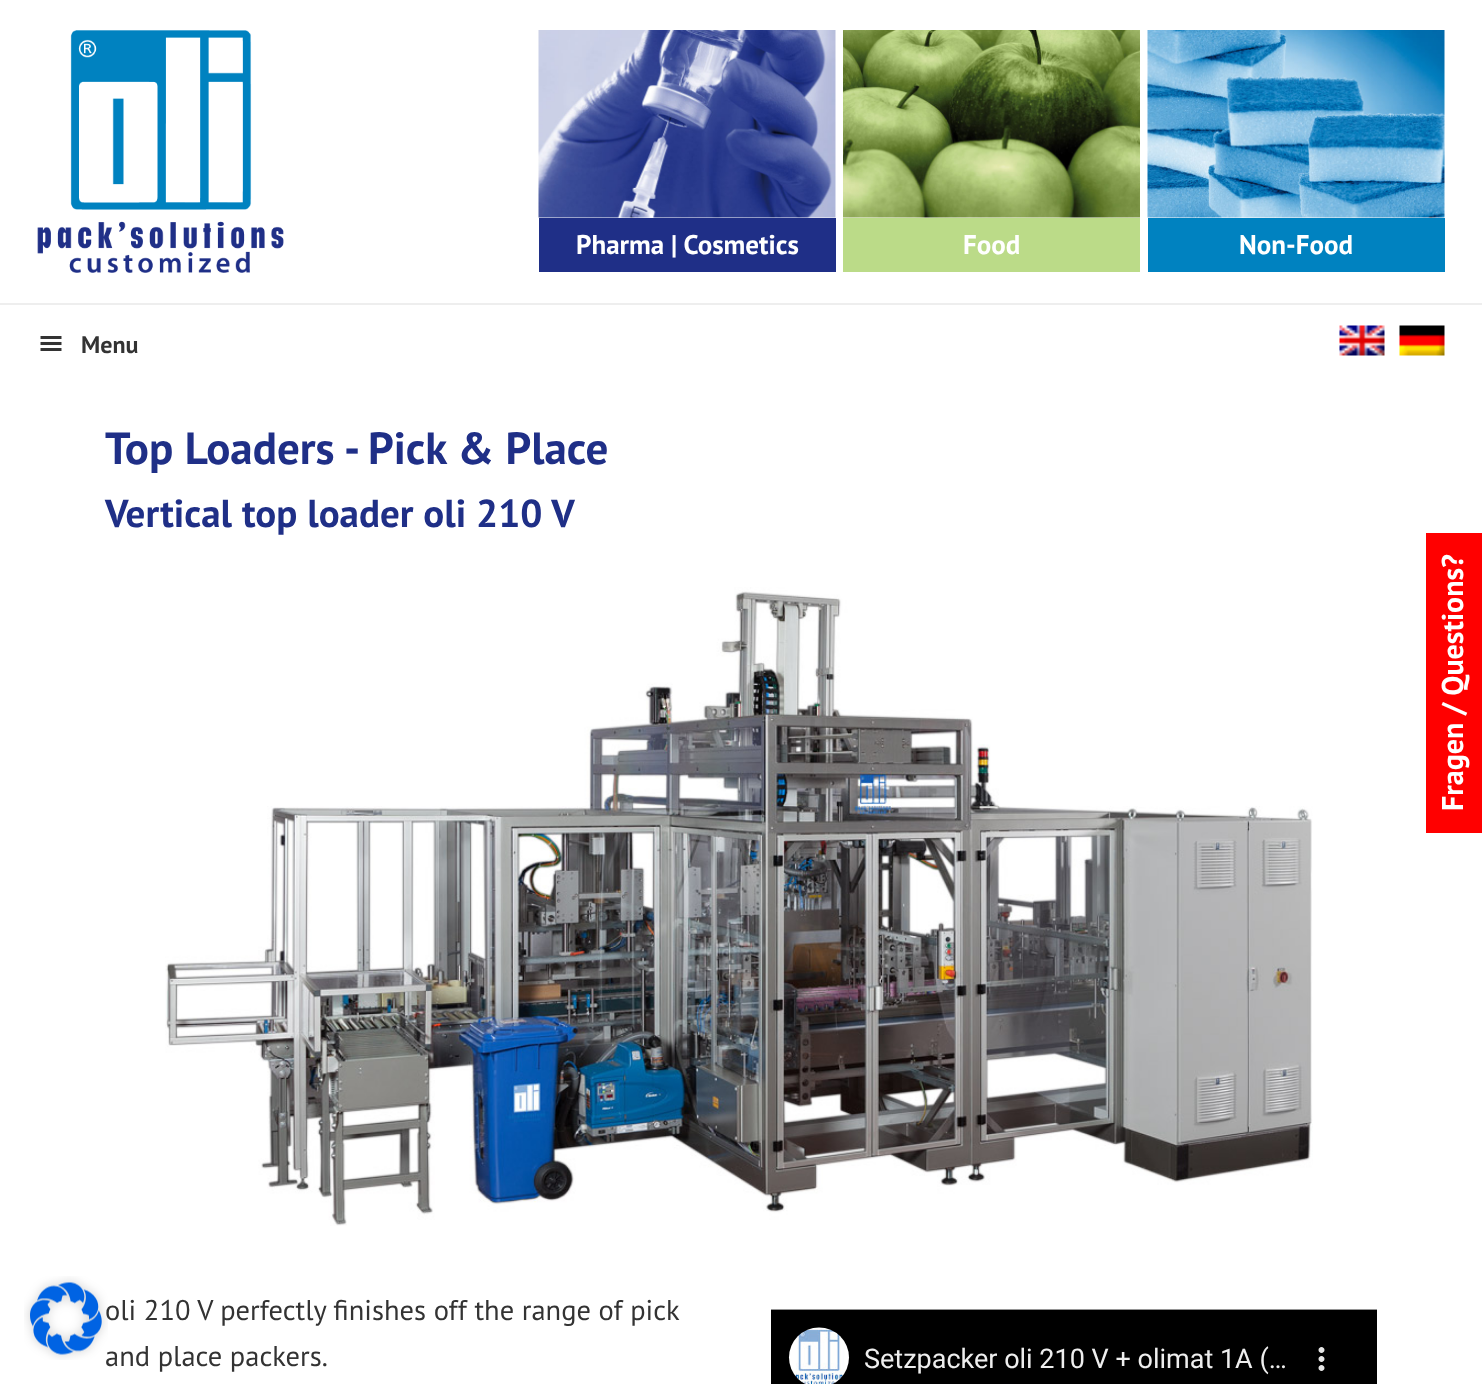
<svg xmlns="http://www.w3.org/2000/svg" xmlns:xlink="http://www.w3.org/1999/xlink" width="1482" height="1384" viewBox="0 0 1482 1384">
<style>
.cls-1{font:bold 27px PT Sans;fill:#ffffff}
.cls-2{font:bold 24px PT Sans;fill:#333333}
.cls-3{font:bold 45px PT Sans;fill:#1f2f87}
.cls-4{font:bold 39px PT Sans;fill:#1f2f87}
.cls-5{font:28.5px PT Sans;fill:#333333}
.cls-6{font:bold 30px PT Sans;fill:#ffffff}
</style>
<rect width="100%" height="100%" fill="#ffffff"/>
<image xlink:href="image0.png" x="37" y="30" width="247" height="243"/>
<image xlink:href="image1.png" x="538" y="30" width="298" height="188"/>
<rect fill="#1f2f87" x="539" y="218" width="297" height="54"/>
<image xlink:href="image2.png" x="843" y="30" width="297" height="188"/>
<rect fill="#bbdb88" x="843" y="218" width="297" height="54"/>
<image xlink:href="image3.png" x="1147" y="30" width="298" height="188"/>
<rect fill="#0082c0" x="1148" y="218" width="297" height="54"/>
<rect fill="#eeeeee" x="0" y="303" width="1482" height="2"/>
<image xlink:href="image4.png" x="40" y="336" width="22" height="15"/>
<image xlink:href="image5.png" x="1339" y="325" width="46" height="31"/>
<image xlink:href="image6.png" x="1399" y="325" width="46" height="31"/>
<image xlink:href="image7.png" x="165" y="587" width="1148" height="639"/>
<image xlink:href="image8.png" x="771" y="1309" width="606" height="75"/>
<path fill="#ff0000" d="M1426 833V533H1482C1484 533 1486 535 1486 537V828C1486 831 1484 833 1482 833Z"/>
<text class="cls-1" x="576" y="254">Pharma | Cosmetics</text>
<text class="cls-1" x="963" y="254">Food</text>
<text class="cls-1" x="1239" y="254">Non-Food</text>
<text class="cls-2" x="81" y="353">Menu</text>
<text class="cls-3" x="105" y="464">Top Loaders - Pick &amp; Place</text>
<text class="cls-4" x="105" y="527">Vertical top loader oli 210 V</text>
<text class="cls-5"><tspan x="105" y="1320">oli 210 V perfectly finishes off the range of pick</tspan><tspan x="105" y="1366">and place packers.</tspan></text>
<text class="cls-6" x="1463" y="811" transform="rotate(-90 1463 811)">Fragen / Questions?</text>
<image xlink:href="image9.png" x="24" y="1276" width="84" height="84"/>
</svg>
